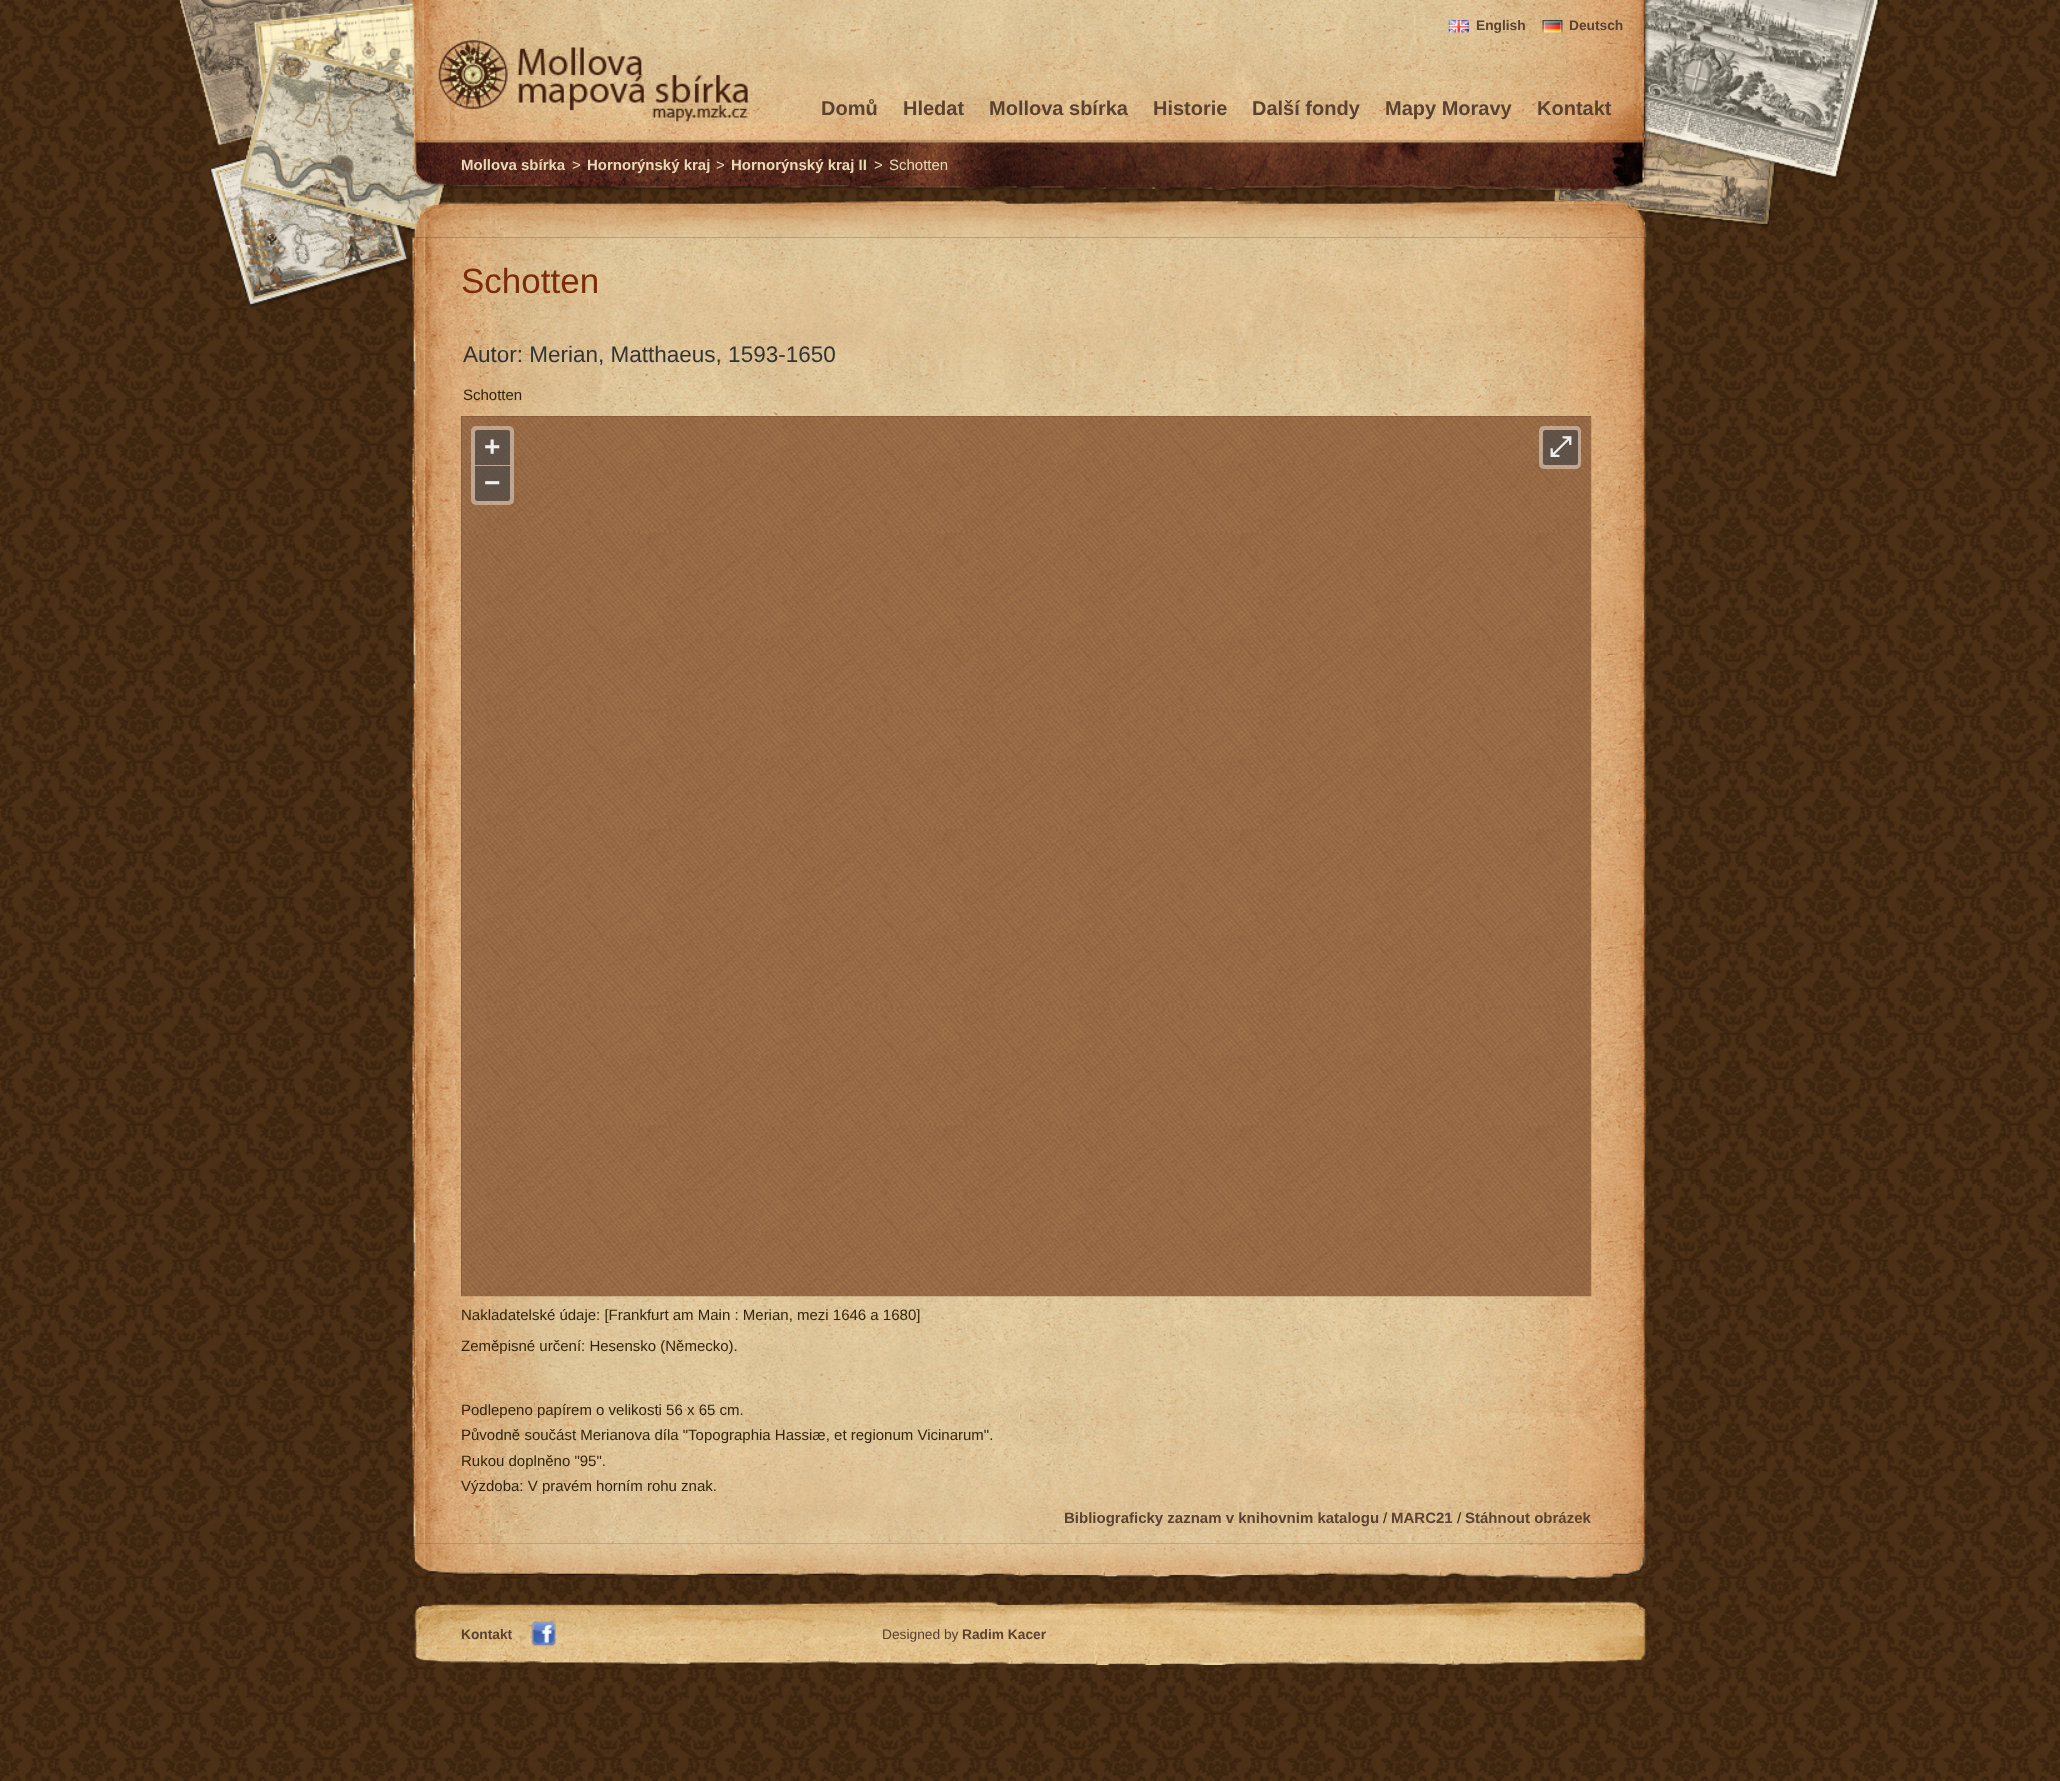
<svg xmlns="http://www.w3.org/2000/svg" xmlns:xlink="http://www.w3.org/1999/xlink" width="2060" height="1781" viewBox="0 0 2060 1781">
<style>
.cls-1{font:bold 13.75px Liberation Sans;fill:#5b412f}
.cls-2{font:bold 20px Liberation Sans;fill:#5b412f}
.cls-3{font:bold 15px Liberation Sans;fill:#ead9b7}
.cls-4{font:15px Liberation Sans;fill:#ead9b7}
.cls-5{font:35px Liberation Sans;fill:#7a2b0a}
.cls-6{font:22.5px Liberation Sans;fill:#333333}
.cls-7{font:15px Liberation Sans;fill:#32240b}
.cls-8{font:bold 28px Liberation Sans;fill:#eeeeee}
.cls-9{font:bold 28px FreeSerif;fill:#eeeeee}
.cls-10{font:bold 15px Liberation Sans;fill:#5b412f}
.cls-11{font:13.75px Liberation Sans;fill:#5b412f}
</style>
<rect width="100%" height="100%" fill="#ffffff"/>
<image xlink:href="image0.png" x="0" y="0" width="2060" height="1781"/>
<image xlink:href="image1.png" x="179" y="0" width="1702" height="309"/>
<image xlink:href="image2.png" x="411" y="0" width="1238" height="194"/>
<image xlink:href="image3.png" x="1448" y="20" width="21" height="13"/>
<image xlink:href="image4.png" x="1542" y="20" width="21" height="13"/>
<image xlink:href="image5.png" x="438" y="39" width="311" height="83"/>
<image xlink:href="image6.png" x="413" y="200" width="1234" height="38"/>
<image xlink:href="image7.png" x="412" y="237" width="1235" height="1307"/>
<rect fill="#553627" x="461" y="416" width="1130" height="880"/>
<image xlink:href="image8.png" x="461" y="416" width="1131" height="881"/>
<rect fill="#ffffff" fill-opacity="0.4" x="471" y="426" width="43" height="79" rx="5"/>
<path fill="#000000" fill-opacity="0.5" d="M477.5 430H507.5C509 430 510 431 510 432.5V465H475V432.5C475 431 476 430 477.5 430Z"/>
<path fill="#000000" fill-opacity="0.5" d="M475 466H510V498.5C510 500 509 501 507.5 501H477.5C476 501 475 500 475 498.5Z"/>
<rect fill="#ffffff" fill-opacity="0.4" x="1539" y="426" width="42" height="43" rx="5"/>
<rect fill="#000000" fill-opacity="0.5" x="1543" y="430" width="35" height="35" rx="2.5"/>
<image xlink:href="image9.png" x="413" y="1543" width="1234" height="37"/>
<image xlink:href="image10.png" x="413" y="1601" width="1234" height="64"/>
<image xlink:href="image11.png" x="531" y="1621" width="25" height="26"/>
<text class="cls-1" x="1476" y="30">English</text>
<text class="cls-1" x="1569" y="30">Deutsch</text>
<text class="cls-2" x="821" y="115">Domů</text>
<text class="cls-2" x="903" y="115">Hledat</text>
<text class="cls-2" x="989" y="115">Mollova sbírka</text>
<text class="cls-2" x="1153" y="115">Historie</text>
<text class="cls-2" x="1252" y="115">Další fondy</text>
<text class="cls-2" x="1385" y="115">Mapy Moravy</text>
<text class="cls-2" x="1537" y="115">Kontakt</text>
<text class="cls-3" x="461" y="170">Mollova sbírka</text>
<text class="cls-4" x="572" y="170">&gt;</text>
<text class="cls-3" x="587" y="170">Hornorýnský kraj</text>
<text class="cls-4" x="716" y="170">&gt;</text>
<text class="cls-3" x="731" y="170">Hornorýnský kraj II</text>
<text class="cls-4" x="874" y="170">&gt;</text>
<text class="cls-4" x="889" y="170">Schotten</text>
<text class="cls-5" x="461" y="293">Schotten</text>
<text class="cls-6" x="463" y="362">Autor: Merian, Matthaeus, 1593-1650</text>
<text class="cls-7" x="463" y="400">Schotten</text>
<text class="cls-8"><tspan x="484" y="456">+</tspan><tspan x="484" y="492">−</tspan></text>
<text class="cls-9" x="1549" y="456">⤢</text>
<text class="cls-7" x="461" y="1320">Nakladatelské údaje: [Frankfurt am Main : Merian, mezi 1646 a 1680]</text>
<text class="cls-7" x="461" y="1351">Zeměpisné určení: Hesensko (Německo).</text>
<text class="cls-7"><tspan x="461" y="1415">Podlepeno papírem o velikosti 56 x 65 cm.</tspan><tspan x="461" y="1440">Původně součást Merianova díla "Topographia Hassiæ, et regionum Vicinarum".</tspan><tspan x="461" y="1466">Rukou doplněno "95".</tspan><tspan x="461" y="1491">Výzdoba: V pravém horním rohu znak.</tspan></text>
<text class="cls-10" x="1064" y="1523">Bibliograficky zaznam v knihovnim katalogu</text>
<text class="cls-7" x="1383" y="1523">/</text>
<text class="cls-10" x="1391" y="1523">MARC21</text>
<text class="cls-7" x="1457" y="1523">/</text>
<text class="cls-10" x="1465" y="1523">Stáhnout obrázek</text>
<text class="cls-1" x="461" y="1639">Kontakt</text>
<text class="cls-11" x="882" y="1639">Designed by</text>
<text class="cls-1" x="962" y="1639">Radim Kacer</text>
</svg>
